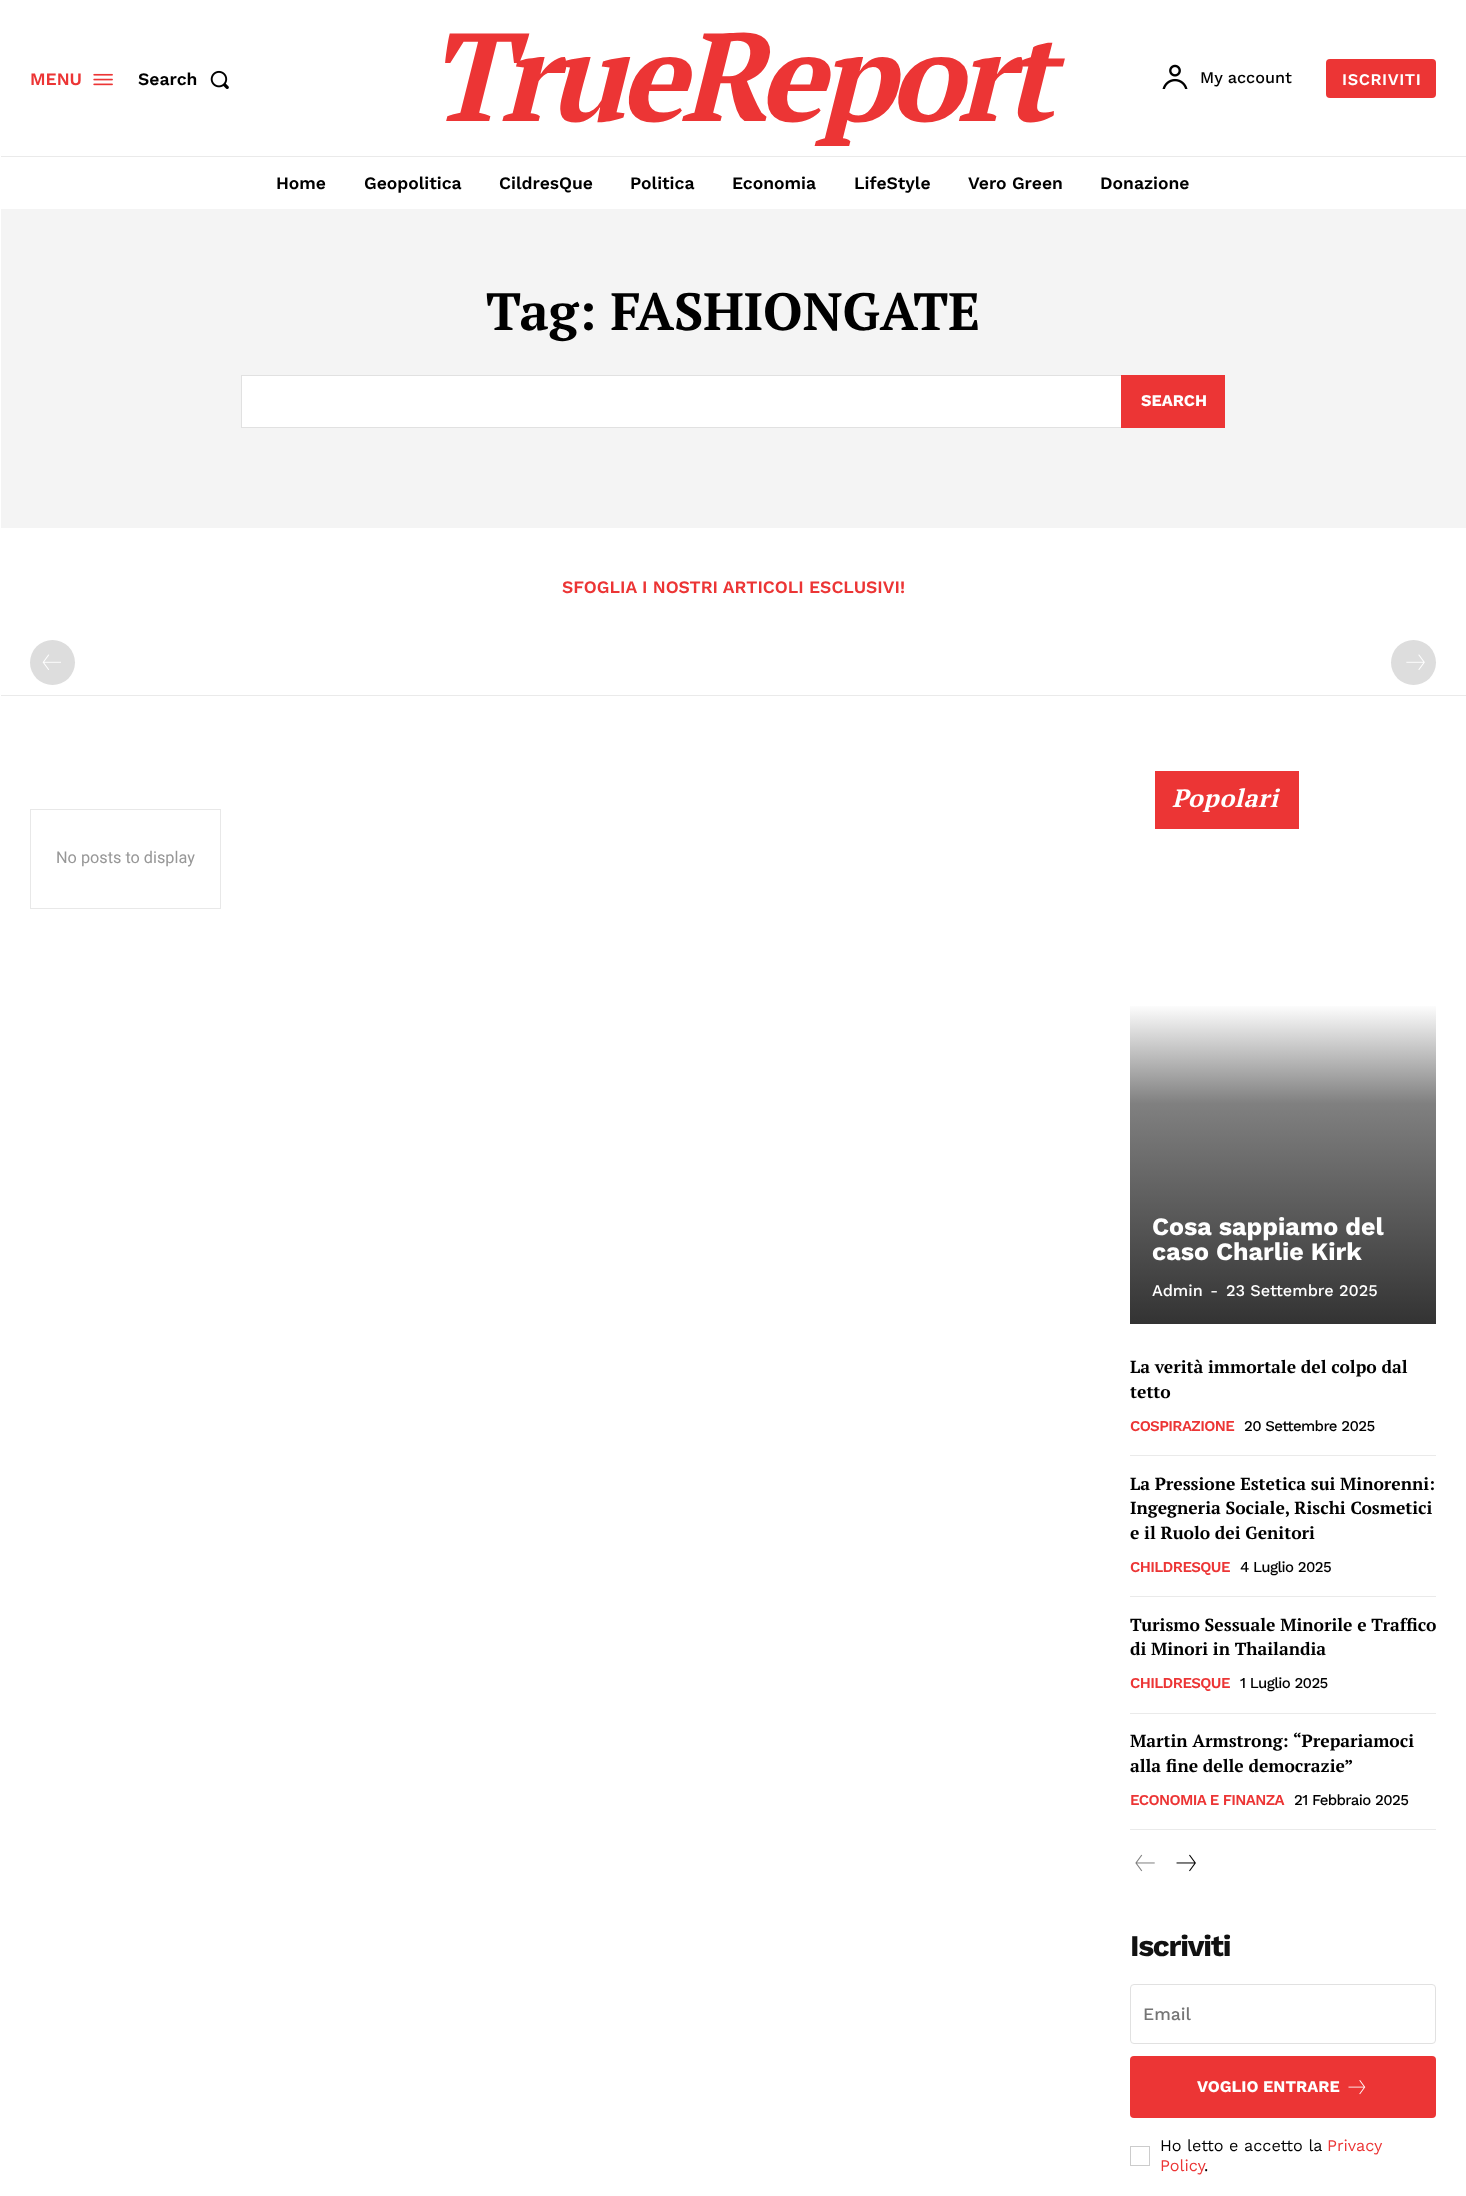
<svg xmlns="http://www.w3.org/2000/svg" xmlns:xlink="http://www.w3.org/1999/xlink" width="1466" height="2196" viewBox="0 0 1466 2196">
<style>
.cls-1{font:600 17.5px Work Sans;fill:#ec3535}
.cls-2{font:600 17.5px Work Sans;fill:#000000}
.cls-3{font:italic bold 125px PT Serif;letter-spacing:-6.25px;fill:#ec3535}
.cls-4{font:500 16.25px Work Sans;fill:#000000}
.cls-5{font:600 16.25px Work Sans;letter-spacing:0.6px;fill:#ffffff}
.cls-6{font:bold 52.5px PT Serif;fill:#000000}
.cls-7{font:bold 16.25px Work Sans;fill:#ffffff}
.cls-8{font:16.25px Roboto;fill:#979797}
.cls-9{font:italic bold 25px PT Serif;letter-spacing:0.6px;fill:#ffffff}
.cls-10{font:bold 25px Work Sans;fill:#ffffff}
.cls-11{font:500 16.25px Work Sans;fill:#ffffff}
.cls-12{font:16.25px Work Sans;fill:#ffffff}
.cls-13{font:bold 17.5px PT Serif;fill:#000000}
.cls-14{font:600 15px Work Sans;letter-spacing:-0.6px;fill:#ec3535}
.cls-15{font:500 15px Work Sans;letter-spacing:-0.6px;fill:#000000}
.cls-16{font:bold 30px Work Sans;letter-spacing:-1.25px;fill:#111111}
.cls-17{font:500 17.5px Work Sans;fill:#757575}
.cls-18{font:16.25px Work Sans;fill:#000000}
.cls-19{font:16.25px Work Sans;fill:#ec3535}
</style>
<defs>
<linearGradient id="g1" gradientUnits="userSpaceOnUse" x1="1283" y1="1324" x2="1283" y2="799"><stop offset="0" stop-color="#333333"/><stop offset="0.42" stop-color="#808080"/><stop offset="0.61" stop-color="#ffffff"/><stop offset="1" stop-color="#ffffff"/></linearGradient>
</defs>
<rect width="100%" height="100%" fill="#ffffff"/>
<image xlink:href="image0.png" x="93" y="73" width="20" height="13"/>
<image xlink:href="image1.png" x="210" y="70" width="19" height="19"/>
<image xlink:href="image2.png" x="1162" y="64" width="26" height="25"/>
<rect fill="#ec3535" x="1326" y="59" width="110" height="39" rx="4"/>
<rect fill="#eaeaea" x="1" y="156" width="1465" height="1"/>
<rect fill="#f4f4f4" x="1" y="209" width="1465" height="319"/>
<rect fill="#ffffff" x="242" y="376" width="879" height="51"/>
<rect fill="none" stroke="#e1e1e1" x="241.5" y="375.5" width="983" height="52"/>
<rect fill="#ec3535" x="1121" y="375" width="104" height="53"/>
<circle fill="#dddddd" cx="52.5" cy="662.5" r="22.5"/>
<image xlink:href="image3.png" x="42" y="654" width="19" height="16"/>
<circle fill="#dddddd" cx="1413.5" cy="662.5" r="22.5"/>
<image xlink:href="image4.png" x="1406" y="654" width="19" height="16"/>
<rect fill="#eaeaea" x="1" y="695" width="1465" height="1"/>
<rect fill="none" stroke="#e8e8e8" x="30.5" y="809.5" width="190" height="99"/>
<rect fill="#ec3535" x="1155" y="771" width="144" height="58"/>
<rect fill="url(#g1)" x="1130" y="1006" width="306" height="318"/>
<rect fill="#eaeaea" x="1130" y="1455" width="306" height="1"/>
<rect fill="#eaeaea" x="1130" y="1596" width="306" height="1"/>
<rect fill="#eaeaea" x="1130" y="1713" width="306" height="1"/>
<rect fill="#eaeaea" x="1130" y="1829" width="306" height="1"/>
<image xlink:href="image5.png" x="1135" y="1854" width="20" height="18"/>
<image xlink:href="image6.png" x="1176" y="1854" width="20" height="18"/>
<rect fill="none" stroke="#e1e1e1" x="1130.5" y="1984.5" width="305" height="59" rx="3.5"/>
<rect fill="#ec3535" x="1130" y="2056" width="306" height="62" rx="4"/>
<image xlink:href="image7.png" x="1348" y="2080" width="18" height="15"/>
<rect fill="none" stroke="#cccccc" x="1130.5" y="2146.5" width="19" height="19"/>
<text class="cls-1" x="30" y="85">MENU</text>
<text class="cls-2" x="138" y="85">Search</text>
<text class="cls-3" x="426" y="121">TrueReport</text>
<text class="cls-4" x="1200" y="83">My account</text>
<text class="cls-5" x="1342" y="85">ISCRIVITI</text>
<text class="cls-2" x="276" y="189">Home</text>
<text class="cls-2" x="364" y="189">Geopolitica</text>
<text class="cls-2" x="499" y="189">CildresQue</text>
<text class="cls-2" x="630" y="189">Politica</text>
<text class="cls-2" x="732" y="189">Economia</text>
<text class="cls-2" x="854" y="189">LifeStyle</text>
<text class="cls-2" x="968" y="189">Vero Green</text>
<text class="cls-2" x="1100" y="189">Donazione</text>
<text class="cls-6" x="486" y="330">Tag: FASHIONGATE</text>
<text class="cls-7" x="1141" y="406">SEARCH</text>
<text class="cls-1" x="562" y="593">SFOGLIA I NOSTRI ARTICOLI ESCLUSIVI!</text>
<text class="cls-8" x="56" y="863">No posts to display</text>
<text class="cls-9" x="1172" y="807">Popolari</text>
<text class="cls-10"><tspan x="1152" y="1235">Cosa sappiamo del</tspan><tspan x="1152" y="1260">caso Charlie Kirk</tspan></text>
<text class="cls-11" x="1152" y="1296">Admin</text>
<text class="cls-12" x="1210" y="1296">-</text>
<text class="cls-11" x="1226" y="1296">23 Settembre 2025</text>
<text class="cls-13"><tspan x="1130" y="1373">La verità immortale del colpo dal</tspan><tspan x="1130" y="1398">tetto</tspan></text>
<text class="cls-14" x="1130" y="1431">COSPIRAZIONE</text>
<text class="cls-15" x="1244" y="1431">20 Settembre 2025</text>
<text class="cls-13"><tspan x="1130" y="1490">La Pressione Estetica sui Minorenni:</tspan><tspan x="1130" y="1514">Ingegneria Sociale, Rischi Cosmetici</tspan><tspan x="1130" y="1539">e il Ruolo dei Genitori</tspan></text>
<text class="cls-14" x="1130" y="1572">CHILDRESQUE</text>
<text class="cls-15" x="1240" y="1572">4 Luglio 2025</text>
<text class="cls-13"><tspan x="1130" y="1631">Turismo Sessuale Minorile e Traffico</tspan><tspan x="1130" y="1655">di Minori in Thailandia</tspan></text>
<text class="cls-14" x="1130" y="1688">CHILDRESQUE</text>
<text class="cls-15" x="1240" y="1688">1 Luglio 2025</text>
<text class="cls-13"><tspan x="1130" y="1747">Martin Armstrong: “Prepariamoci</tspan><tspan x="1130" y="1772">alla fine delle democrazie”</tspan></text>
<text class="cls-14" x="1130" y="1805">ECONOMIA E FINANZA</text>
<text class="cls-15" x="1294" y="1805">21 Febbraio 2025</text>
<text class="cls-16" x="1130" y="1956">Iscriviti</text>
<text class="cls-17" x="1143" y="2020">Email</text>
<text class="cls-7" x="1197" y="2092">VOGLIO ENTRARE</text>
<text class="cls-18" x="1160" y="2151">Ho letto e accetto la</text>
<text class="cls-19" x="1327" y="2151">Privacy</text>
<text class="cls-19" x="1160" y="2171">Policy</text>
<text class="cls-18" x="1204" y="2171">.</text>
</svg>
